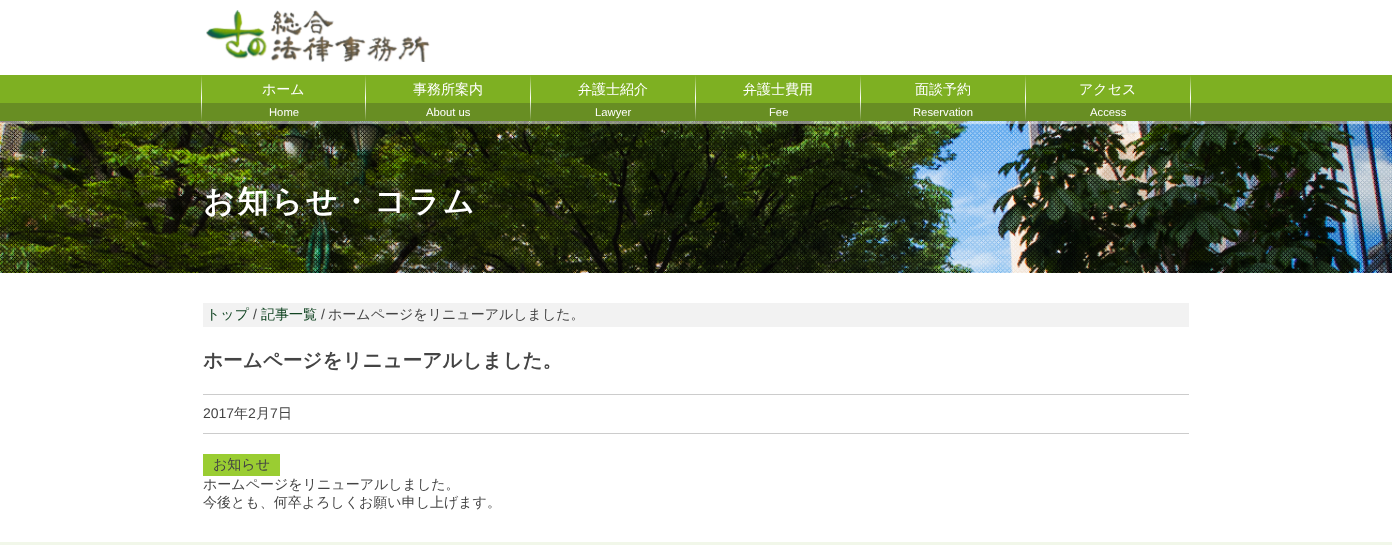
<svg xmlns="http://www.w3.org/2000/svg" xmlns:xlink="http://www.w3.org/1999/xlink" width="1392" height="545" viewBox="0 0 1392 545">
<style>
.cls-1{font:500 14px WenQuanYi Zen Hei;fill:#ffffff}
.cls-2{font:11.25px Liberation Sans;fill:#ffffff}
.cls-3{font:bold 30.75px WenQuanYi Zen Hei;letter-spacing:3px;fill:#ffffff}
.cls-4{font:500 14px WenQuanYi Zen Hei;fill:#114422}
.cls-5{font:14px Liberation Sans;fill:#444444}
.cls-6{font:500 14px WenQuanYi Zen Hei;fill:#444444}
.cls-7{font:bold 19.6px WenQuanYi Zen Hei;fill:#444444}
</style>
<defs>
<linearGradient id="g1" gradientUnits="userSpaceOnUse" x1="202" y1="75" x2="202" y2="121"><stop offset="0" stop-color="#ffffff" stop-opacity="0"/><stop offset="0.5" stop-color="#ffffff"/><stop offset="1" stop-color="#ffffff" stop-opacity="0"/></linearGradient>
<linearGradient id="g2" gradientUnits="userSpaceOnUse" x1="366" y1="75" x2="366" y2="121"><stop offset="0" stop-color="#ffffff" stop-opacity="0"/><stop offset="0.5" stop-color="#ffffff"/><stop offset="1" stop-color="#ffffff" stop-opacity="0"/></linearGradient>
<linearGradient id="g3" gradientUnits="userSpaceOnUse" x1="531" y1="75" x2="531" y2="121"><stop offset="0" stop-color="#ffffff" stop-opacity="0"/><stop offset="0.5" stop-color="#ffffff"/><stop offset="1" stop-color="#ffffff" stop-opacity="0"/></linearGradient>
<linearGradient id="g4" gradientUnits="userSpaceOnUse" x1="696" y1="75" x2="696" y2="121"><stop offset="0" stop-color="#ffffff" stop-opacity="0"/><stop offset="0.5" stop-color="#ffffff"/><stop offset="1" stop-color="#ffffff" stop-opacity="0"/></linearGradient>
<linearGradient id="g5" gradientUnits="userSpaceOnUse" x1="861" y1="75" x2="861" y2="121"><stop offset="0" stop-color="#ffffff" stop-opacity="0"/><stop offset="0.5" stop-color="#ffffff"/><stop offset="1" stop-color="#ffffff" stop-opacity="0"/></linearGradient>
<linearGradient id="g6" gradientUnits="userSpaceOnUse" x1="1026" y1="75" x2="1026" y2="121"><stop offset="0" stop-color="#ffffff" stop-opacity="0"/><stop offset="0.5" stop-color="#ffffff"/><stop offset="1" stop-color="#ffffff" stop-opacity="0"/></linearGradient>
<linearGradient id="g7" gradientUnits="userSpaceOnUse" x1="1191" y1="75" x2="1191" y2="121"><stop offset="0" stop-color="#ffffff" stop-opacity="0"/><stop offset="0.5" stop-color="#ffffff"/><stop offset="1" stop-color="#ffffff" stop-opacity="0"/></linearGradient>
</defs>
<rect width="100%" height="100%" fill="#ffffff"/>
<image xlink:href="image0.png" x="206" y="10" width="224" height="52"/>
<image xlink:href="image1.png" x="0" y="121" width="1392" height="152"/>
<rect fill="#ffffff" fill-opacity="0.5" x="0" y="121" width="1392" height="3"/>
<rect fill="#7eb022" x="0" y="75" width="1392" height="28"/>
<rect fill="#688e23" x="0" y="103" width="1392" height="18"/>
<rect fill="url(#g1)" x="201" y="75" width="1" height="46"/>
<rect fill="url(#g2)" x="365" y="75" width="1" height="46"/>
<rect fill="url(#g3)" x="530" y="75" width="1" height="46"/>
<rect fill="url(#g4)" x="695" y="75" width="1" height="46"/>
<rect fill="url(#g5)" x="860" y="75" width="1" height="46"/>
<rect fill="url(#g6)" x="1025" y="75" width="1" height="46"/>
<rect fill="url(#g7)" x="1190" y="75" width="1" height="46"/>
<rect fill="#f2f2f2" x="203" y="303" width="986" height="24"/>
<rect fill="#cccccc" x="203" y="394" width="986" height="1"/>
<rect fill="#cccccc" x="203" y="433" width="986" height="1"/>
<rect fill="#9acd32" x="203" y="454" width="77" height="22"/>
<rect fill="#f1f7e9" x="0" y="542" width="1392" height="3"/>
<text class="cls-1" x="262" y="94">ホーム</text>
<text class="cls-2" x="269" y="116">Home</text>
<text class="cls-1" x="413" y="94">事務所案内</text>
<text class="cls-2" x="426" y="116">About us</text>
<text class="cls-1" x="578" y="94">弁護士紹介</text>
<text class="cls-2" x="595" y="116">Lawyer</text>
<text class="cls-1" x="743" y="94">弁護士費用</text>
<text class="cls-2" x="769" y="116">Fee</text>
<text class="cls-1" x="915" y="94">面談予約</text>
<text class="cls-2" x="913" y="116">Reservation</text>
<text class="cls-1" x="1079" y="94">アクセス</text>
<text class="cls-2" x="1090" y="116">Access</text>
<text class="cls-3" x="203" y="212">お知らせ・コラム</text>
<text class="cls-4" x="206" y="319">トップ</text>
<text class="cls-5" x="253" y="319">/</text>
<text class="cls-4" x="261" y="319">記事一覧</text>
<text class="cls-5" x="321" y="319">/</text>
<text class="cls-6" x="328" y="319">ホームページをリニューアルしました。</text>
<text class="cls-7" x="203" y="367">ホームページをリニューアルしました。</text>
<text class="cls-5" x="203" y="418">2017</text>
<text class="cls-6" x="234" y="418">年</text>
<text class="cls-5" x="248" y="418">2</text>
<text class="cls-6" x="256" y="418">月</text>
<text class="cls-5" x="270" y="418">7</text>
<text class="cls-6" x="278" y="418">日</text>
<text class="cls-6" x="213" y="469">お知らせ</text>
<text class="cls-6"><tspan x="203" y="489">ホームページをリニューアルしました。</tspan><tspan x="203" y="507">今後とも、何卒よろしくお願い申し上げます。</tspan></text>
</svg>
